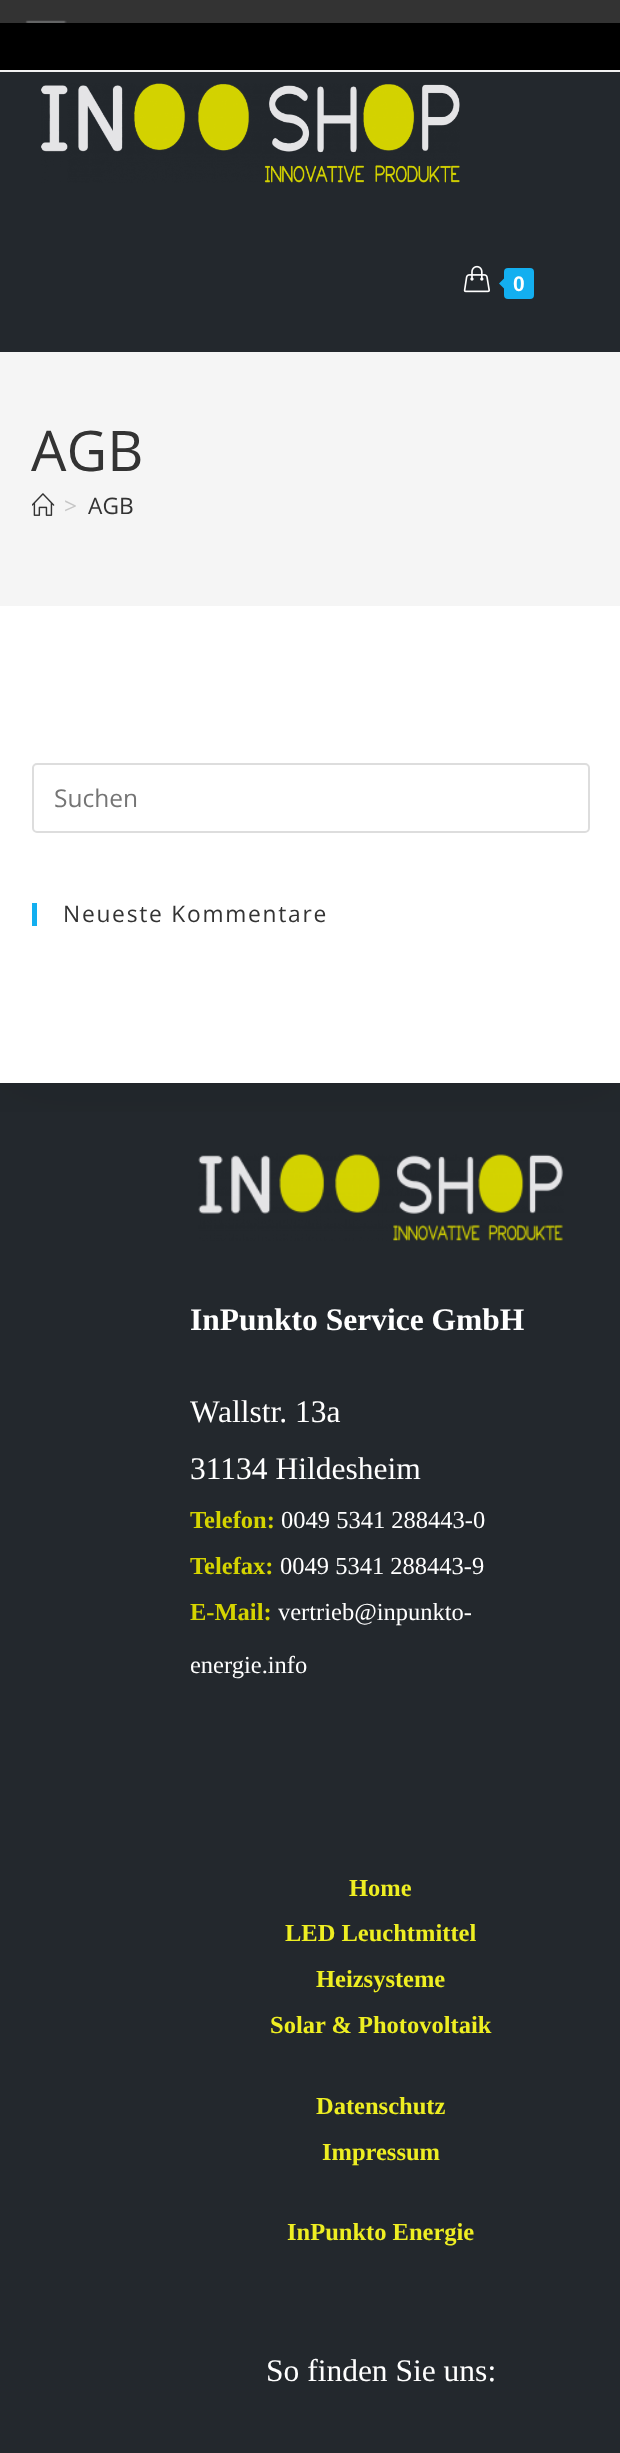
<svg xmlns="http://www.w3.org/2000/svg" xmlns:xlink="http://www.w3.org/1999/xlink" width="620" height="2453" viewBox="0 0 620 2453">
<style>
.cls-1{font:bold 21px Liberation Sans;letter-spacing:1px;fill:#ffffff}
.cls-2{font:56px Open Sans;fill:#333333}
.cls-3{font:22.75px Open Sans;fill:#c6c6c6}
.cls-4{font:22.75px Open Sans;fill:#333333}
.cls-5{font:24.5px Open Sans;fill:#757575}
.cls-6{font:22.75px Open Sans;letter-spacing:1.75px;fill:#333333}
.cls-7{font:bold 31.5px Liberation Serif;fill:#ffffff}
.cls-8{font:31.5px Liberation Serif;fill:#ffffff}
.cls-9{font:bold 24.5px Liberation Serif;fill:#d5d400}
.cls-10{font:24.5px Liberation Serif;fill:#ffffff}
.cls-11{font:bold 24.5px Liberation Serif;fill:#eeee22}
</style>
<defs>
<clipPath id="clip1"><rect x="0" y="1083" width="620" height="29"/></clipPath>
</defs>
<rect width="100%" height="100%" fill="#ffffff"/>
<rect fill="#333333" x="0" y="0" width="620" height="23"/>
<image xlink:href="image0.png" x="25" y="20" width="42" height="3"/>
<rect fill="#000000" x="0" y="23" width="620" height="47"/>
<rect fill="#f1f1f1" x="0" y="70" width="620" height="2"/>
<rect fill="#23282d" x="0" y="1083" width="620" height="1370"/>
<image xlink:href="image4.png" x="198" y="1153" width="366" height="88"/>
<g clip-path="url(#clip1)">
<rect fill="#000000" fill-opacity="0.1" filter="blur(35px)" x="0" y="352" width="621" height="731"/>
</g>
<rect fill="#23282d" x="0" y="72" width="620" height="280"/>
<image xlink:href="image1.png" x="41" y="83" width="419" height="100"/>
<image xlink:href="image2.png" x="463" y="265" width="27" height="28"/>
<rect fill="#13aff0" x="504" y="268" width="30" height="31" rx="4"/>
<path fill="#13aff0" d="M507.5 275V292L499 283.5Z"/>
<rect fill="#f5f5f5" x="0" y="352" width="620" height="254"/>
<image xlink:href="image3.png" x="32" y="493" width="23" height="23"/>
<rect fill="none" stroke="#dddddd" stroke-width="2" x="33" y="764" width="556" height="68" rx="4"/>
<rect fill="#13aff0" x="32" y="903" width="5" height="23"/>
<text class="cls-1" x="513" y="291">0</text>
<text class="cls-2" x="31" y="471">AGB</text>
<text class="cls-3" x="64" y="514">&gt;</text>
<text class="cls-4" x="88" y="514">AGB</text>
<text class="cls-5" x="54" y="807">Suchen</text>
<text class="cls-6" x="63" y="922">Neueste Kommentare</text>
<text class="cls-7" x="190" y="1330">InPunkto Service GmbH</text>
<text class="cls-8" x="190" y="1422">W</text>
<text class="cls-8" x="218" y="1422">allstr. 13a</text>
<text class="cls-8" x="190" y="1479">31134 Hildesheim</text>
<text class="cls-9" x="190" y="1528">Telefon:</text>
<text class="cls-10" x="281" y="1528">0049 5341 288443-0</text>
<text class="cls-9" x="190" y="1574">Telefax:</text>
<text class="cls-10" x="280" y="1574">0049 5341 288443-9</text>
<text class="cls-9" x="190" y="1620">E-Mail:</text>
<text class="cls-10" x="278" y="1620">vertrieb@inpunkto-</text>
<text class="cls-10" x="190" y="1673">energie.info</text>
<text class="cls-11" x="349" y="1896">Home</text>
<text class="cls-11" x="285" y="1941">LED Leuchtmittel</text>
<text class="cls-11" x="316" y="1987">Heizsysteme</text>
<text class="cls-11" x="270" y="2033">Solar &amp; Photovoltaik</text>
<text class="cls-11" x="316" y="2114">Datenschutz</text>
<text class="cls-11" x="322" y="2160">Impressum</text>
<text class="cls-11" x="287" y="2240">InPunkto Energie</text>
<text class="cls-8" x="266" y="2381">So finden Sie uns:</text>
</svg>
